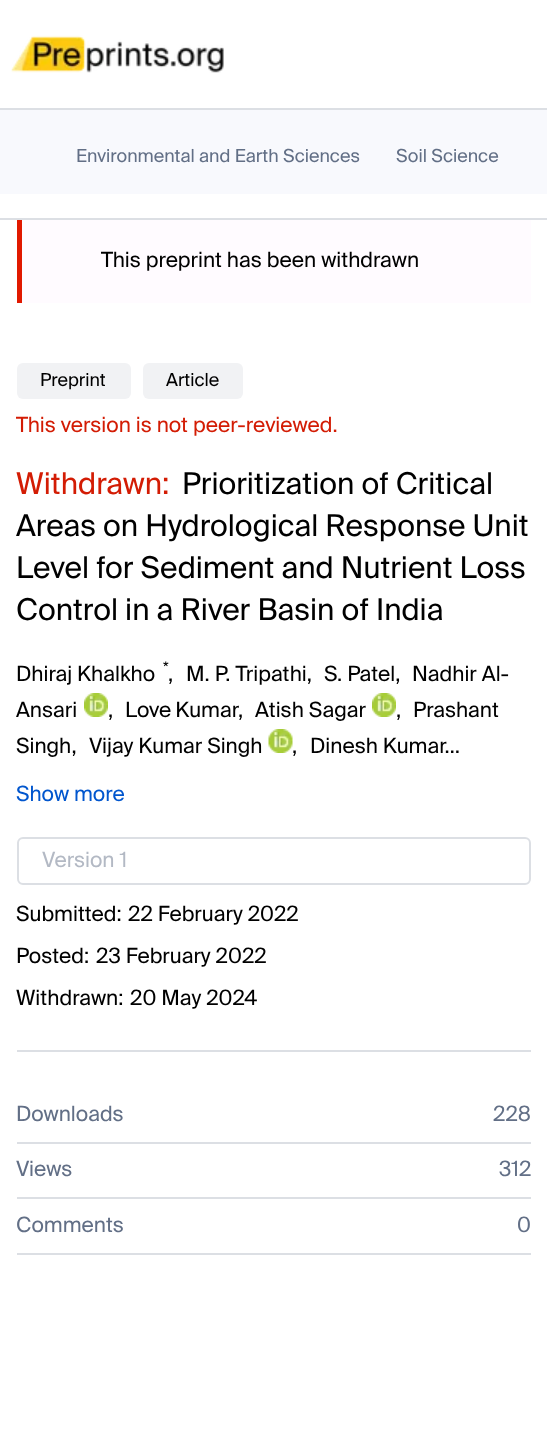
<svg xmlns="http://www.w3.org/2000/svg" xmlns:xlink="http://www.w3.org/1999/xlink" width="547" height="1432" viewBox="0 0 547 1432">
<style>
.cls-1{font:18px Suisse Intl;fill:#626f86}
.cls-2{font:21px Suisse Intl;fill:#000000}
.cls-3{font:18px Suisse Intl;fill:#000000}
.cls-4{font:21px Suisse Intl;fill:#d31c04}
.cls-5{font:30px Suisse Intl;fill:#d31c04}
.cls-6{font:30px Suisse Intl;fill:#000000}
.cls-7{font:16px Suisse Intl;fill:#000000}
.cls-8{font:21px Suisse Intl;fill:#0156ce}
.cls-9{font:21px Suisse Intl;fill:#b3b9c4}
.cls-10{font:21px Suisse Intl;fill:#626f86}
</style>
<rect width="100%" height="100%" fill="#ffffff"/>
<rect fill="#dcdfe4" x="0" y="108" width="547" height="2"/>
<image xlink:href="image0.png" x="11" y="35" width="213" height="38"/>
<rect fill="#f8f9fd" x="0" y="110" width="547" height="84"/>
<rect fill="#e11900" x="17" y="219" width="5" height="84"/>
<rect fill="#dcdfe4" x="0" y="218" width="547" height="2"/>
<rect fill="#fffbff" x="22" y="220" width="509" height="83"/>
<rect fill="#f1f2f4" x="17" y="363" width="114" height="36" rx="6"/>
<rect fill="#f1f2f4" x="143" y="363" width="100" height="36" rx="6"/>
<image xlink:href="image1.png" x="84" y="693" width="24" height="24"/>
<image xlink:href="image2.png" x="372" y="693" width="24" height="24"/>
<image xlink:href="image3.png" x="268" y="729" width="25" height="24"/>
<rect fill="#dcdfe4" x="17" y="1050" width="514" height="2"/>
<rect fill="none" stroke="#dcdfe4" stroke-width="2" x="18" y="838" width="512" height="46" rx="5"/>
<rect fill="#dcdfe4" x="17" y="1142" width="514" height="2"/>
<rect fill="#dcdfe4" x="17" y="1197" width="514" height="2"/>
<rect fill="#dcdfe4" x="17" y="1253" width="514" height="2"/>
<text class="cls-1" x="76" y="162">Environmental and Earth Sciences</text>
<text class="cls-1" x="396" y="162">Soil Science</text>
<text class="cls-2" x="101" y="267">This preprint has been withdrawn</text>
<text class="cls-3" x="40" y="386">Preprint</text>
<text class="cls-3" x="166" y="386">Article</text>
<text class="cls-4" x="16" y="432">This version is not peer-reviewed.</text>
<text class="cls-5" x="16" y="494">Withdrawn:</text>
<text class="cls-6" x="182" y="494">Prioritization of Critical</text>
<text class="cls-6"><tspan x="16" y="536">Areas on Hydrological Response Unit</tspan><tspan x="16" y="578">Level for Sediment and Nutrient Loss</tspan><tspan x="16" y="620">Control in a River Basin of India</tspan></text>
<text class="cls-7" x="163" y="673">*</text>
<text class="cls-2" x="412" y="681">Nadhir Al-</text>
<text class="cls-2" x="16" y="717">Ansari</text>
<text class="cls-2" x="108" y="717">,</text>
<text class="cls-2" x="16" y="681">Dhiraj Khalkho</text>
<text class="cls-2" x="168" y="681">,</text>
<text class="cls-2" x="186" y="681">M. P. Tripathi,</text>
<text class="cls-2" x="324" y="681">S. Patel,</text>
<text class="cls-2" x="125" y="717" word-spacing="-1">Love Kumar</text>
<text class="cls-2" x="238" y="717">,</text>
<text class="cls-2" x="255" y="717">Atish Sagar</text>
<text class="cls-2" x="396" y="717">,</text>
<text class="cls-2" x="413" y="717">Prashant</text>
<text class="cls-2" x="16" y="753">Singh,</text>
<text class="cls-2" x="89" y="753">Vijay Kumar Singh</text>
<text class="cls-2" x="292" y="753">,</text>
<text class="cls-2" x="310" y="753">Dinesh Kumar…</text>
<text class="cls-8" x="16" y="801">Show more</text>
<text class="cls-9" x="42" y="867">Version 1</text>
<text class="cls-2" x="16" y="921">Submitted:</text>
<text class="cls-2" x="128" y="921">22 February 2022</text>
<text class="cls-2" x="16" y="963">Posted:</text>
<text class="cls-2" x="96" y="963">23 February 2022</text>
<text class="cls-2" x="16" y="1005">Withdrawn:</text>
<text class="cls-2" x="130" y="1005">20 May 2024</text>
<text class="cls-10" x="16" y="1121">Downloads</text>
<text class="cls-10" x="493" y="1121">228</text>
<text class="cls-10" x="16" y="1176">Views</text>
<text class="cls-10" x="499" y="1176">312</text>
<text class="cls-10" x="16" y="1232">Comments</text>
<text class="cls-10" x="517" y="1232">0</text>
</svg>
